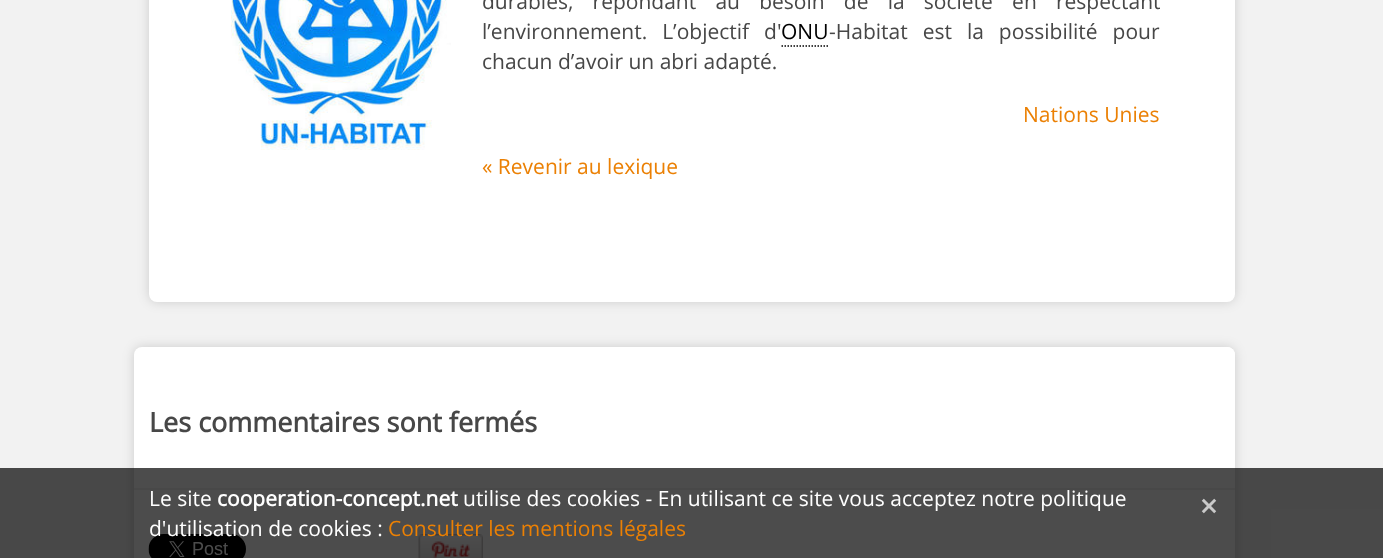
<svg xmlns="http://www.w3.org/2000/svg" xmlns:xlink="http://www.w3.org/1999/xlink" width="1383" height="558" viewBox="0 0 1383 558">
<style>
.cls-1{font:21px Open Sans;fill:#474747}
.cls-2{font:21px Open Sans;fill:#000000}
.cls-3{font:21px Open Sans;fill:#eb8004}
.cls-4{font:bold 27px Open Sans;fill:#474747}
.cls-5{font:21px Open Sans;fill:#ffffff}
.cls-6{font:bold 21px Open Sans;fill:#ffffff}
.cls-7{font:bold 30px Open Sans;fill:#c9c9c9}
</style>
<rect width="100%" height="100%" fill="#f2f2f2"/>
<rect fill="#000000" fill-opacity="0.15" filter="blur(6px)" x="149" y="-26" width="1086" height="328" rx="8"/>
<rect fill="#ffffff" x="149" y="-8" width="1086" height="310" rx="8"/>
<image xlink:href="image0.png" x="231" y="0" width="220" height="150"/>
<path fill="none" stroke="#000000" stroke-width="1.5" stroke-dasharray="1.5 1.5" d="M781.5 46H828"/>
<rect fill="#000000" fill-opacity="0.15" filter="blur(6px)" x="134" y="347" width="1101" height="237" rx="8"/>
<rect fill="#ffffff" x="134" y="347" width="1101" height="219" rx="8"/>
<rect fill="#ffffff" x="149" y="347" width="1086" height="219" rx="8"/>
<rect fill="#f0f0f0" x="134" y="488" width="1101" height="2"/>
<image xlink:href="image1.png" x="148" y="534" width="98" height="24"/>
<image xlink:href="image2.png" x="418" y="534" width="65" height="24"/>
<rect fill="#000000" fill-opacity="0.7" x="0" y="468" width="1383" height="90"/>
<text class="cls-1"><tspan x="482" y="9" word-spacing="13.75">durables, répondant au besoin de la société en respectant</tspan><tspan x="482" y="39" word-spacing="9.5">l’environnement. L’objectif d'</tspan></text>
<text class="cls-2" x="781" y="39">ONU</text>
<text class="cls-1" x="829" y="39" word-spacing="9.5">-Habitat est la possibilité pour</text>
<text class="cls-1" x="482" y="69">chacun d’avoir un abri adapté.</text>
<text class="cls-3" x="1023" y="122">Nations Unies</text>
<text class="cls-3" x="482" y="174">« Revenir au lexique</text>
<text class="cls-4" x="149" y="432">Les commentaires sont fermés</text>
<text class="cls-5" x="149" y="506">Le site</text>
<text class="cls-6" x="217" y="506">cooperation-concept.net</text>
<text class="cls-5" x="463" y="506">utilise des cookies - En utilisant ce site vous acceptez notre politique</text>
<text class="cls-7" x="1200" y="517">×</text>
<text class="cls-5" x="149" y="536">d'utilisation de cookies :</text>
<text class="cls-3" x="388" y="536">Consulter les mentions légales</text>
</svg>
